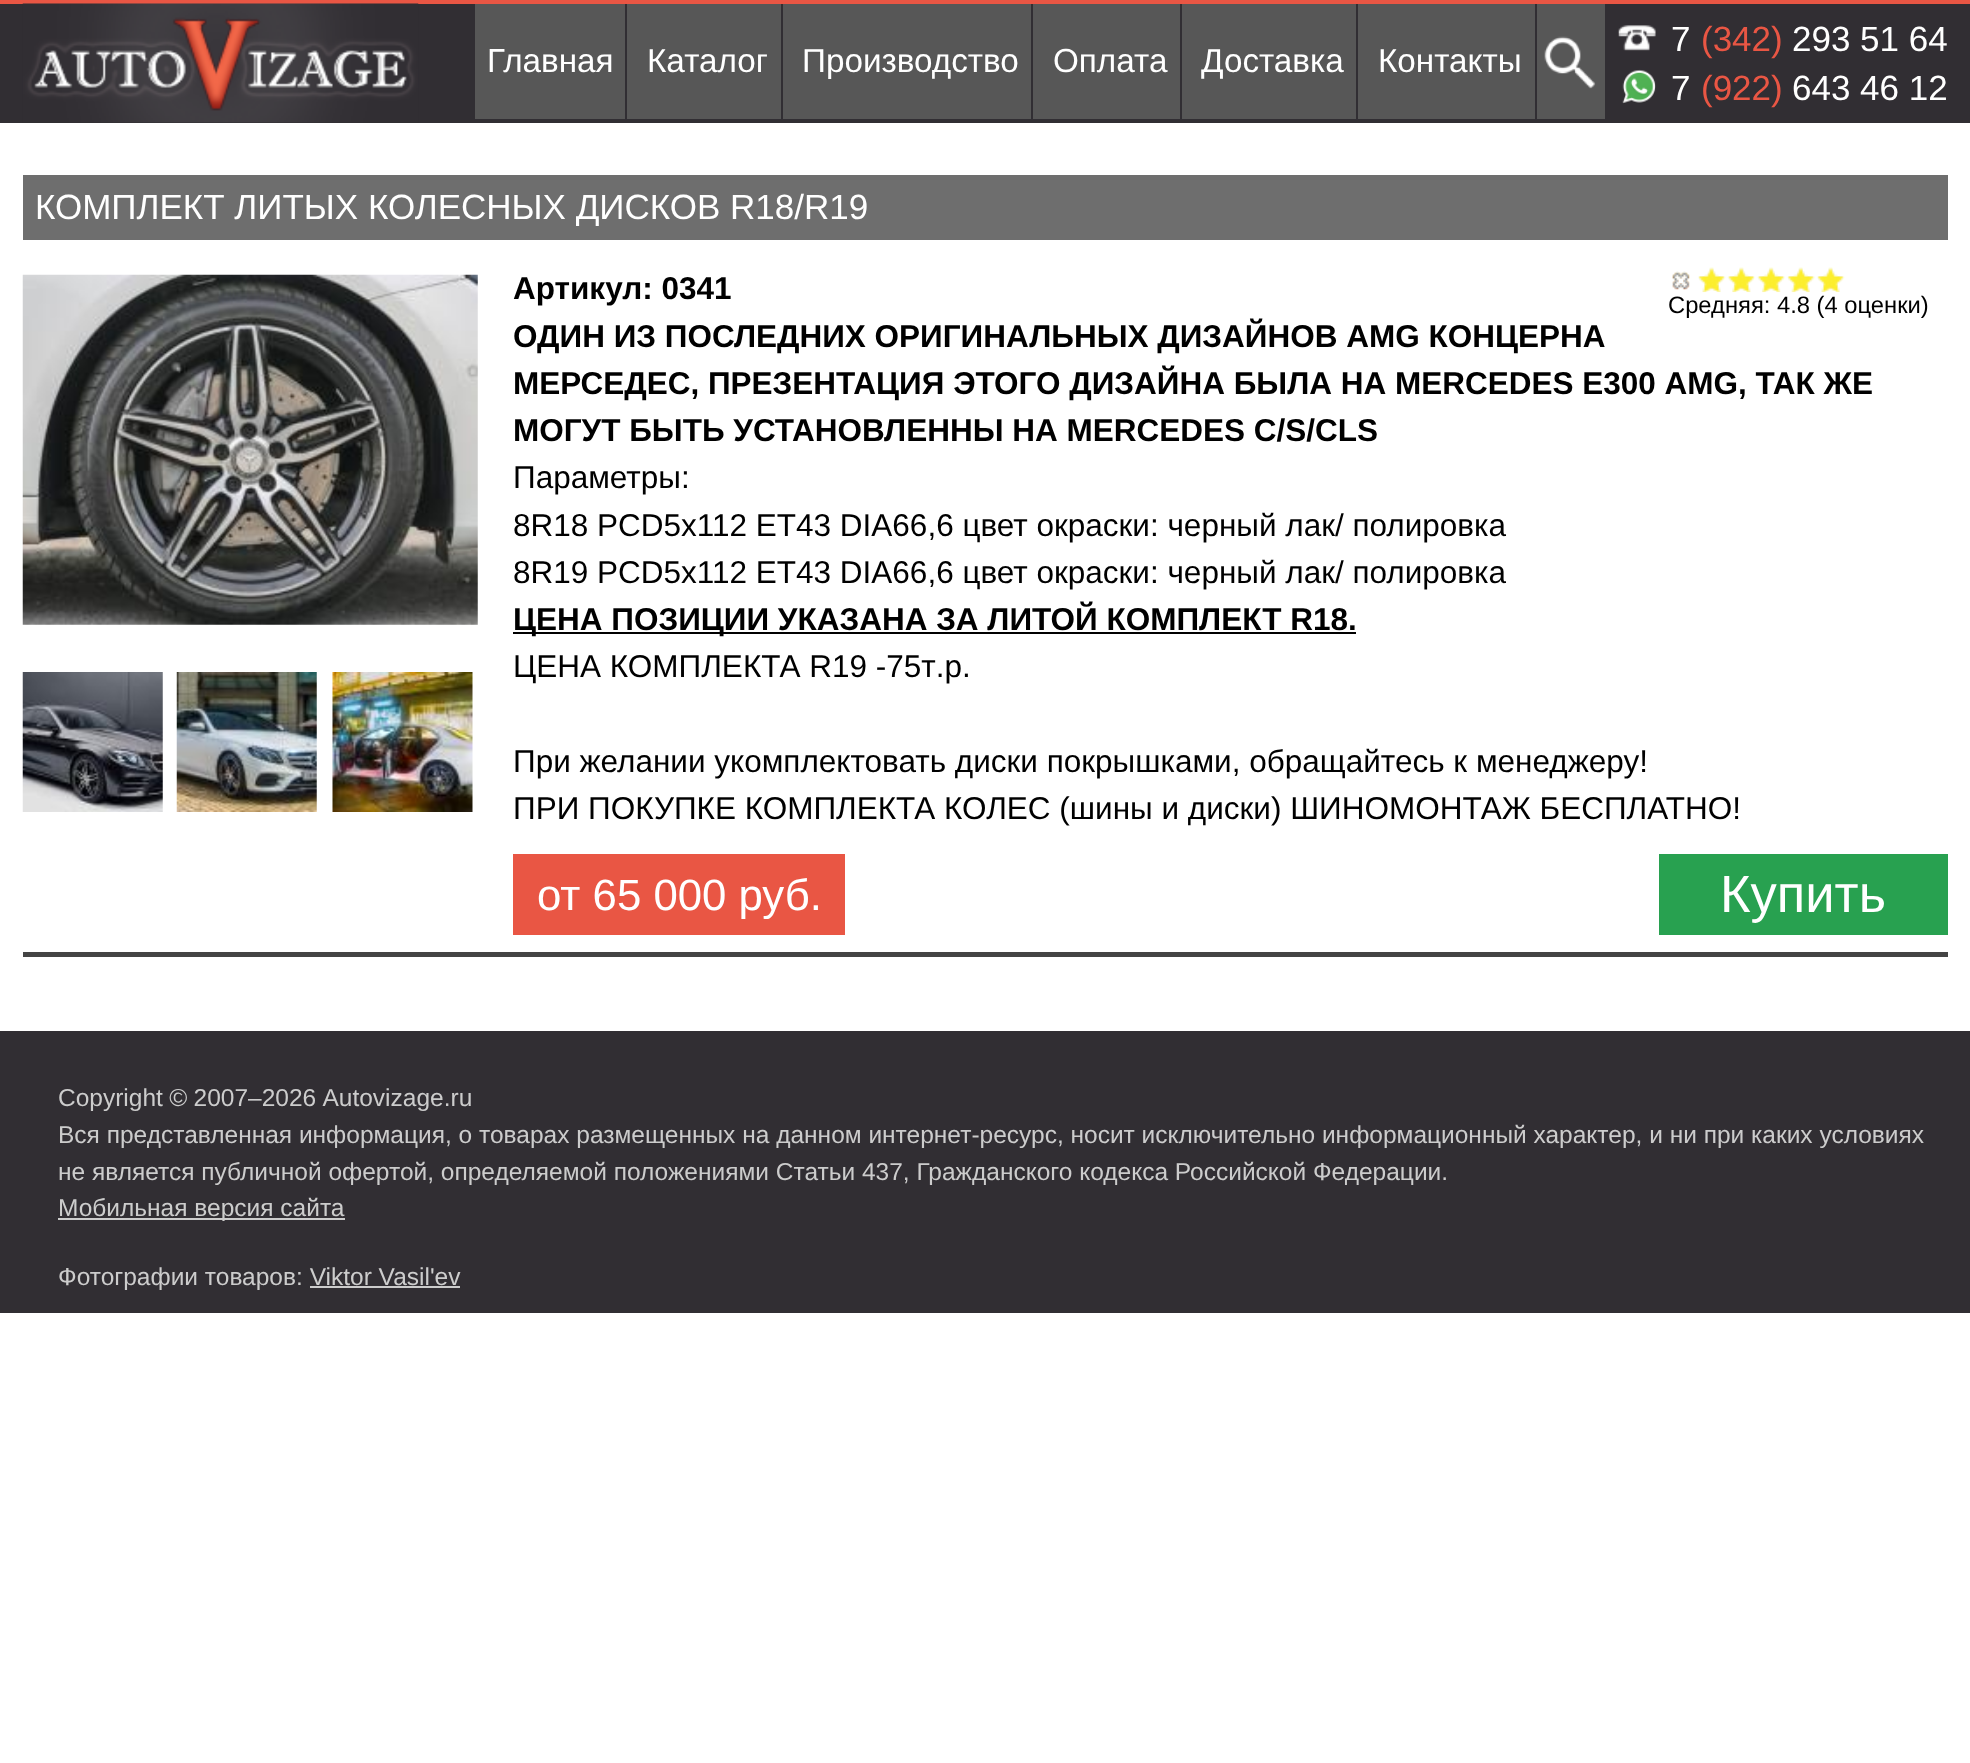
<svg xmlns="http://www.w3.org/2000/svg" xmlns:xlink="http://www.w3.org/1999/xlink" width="1970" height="1763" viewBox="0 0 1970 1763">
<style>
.cls-1{font:33.25px Arimo;fill:#ffffff}
.cls-2{font:35px Arimo;fill:#ffffff}
.cls-3{font:35px Arimo;fill:#e95644}
.cls-4{font:bold 31.5px Arimo;fill:#000000}
.cls-5{font:23.75px Arimo;fill:#000000}
.cls-6{font:31.5px Arimo;fill:#000000}
.cls-7{font:43.75px Arimo;fill:#ffffff}
.cls-8{font:52.5px Arimo;fill:#ffffff}
.cls-9{font:24.5px Arimo;fill:#cccccc}
</style>
<rect width="100%" height="100%" fill="#ffffff"/>
<rect fill="#312e33" x="0" y="4" width="1970" height="119"/>
<rect fill="#e95644" x="0" y="0" width="1970" height="4"/>
<image xlink:href="image0.png" x="22" y="3" width="397" height="120"/>
<rect fill="#575757" x="475" y="4" width="1130" height="115"/>
<rect fill="#312e33" x="625" y="4" width="2" height="115"/>
<rect fill="#312e33" x="781" y="4" width="2" height="115"/>
<rect fill="#312e33" x="1031" y="4" width="2" height="115"/>
<rect fill="#312e33" x="1180" y="4" width="2" height="115"/>
<rect fill="#312e33" x="1356" y="4" width="2" height="115"/>
<rect fill="#312e33" x="1535" y="4" width="2" height="115"/>
<image xlink:href="image1.png" x="1544" y="36" width="52" height="53"/>
<image xlink:href="image2.png" x="1618" y="25" width="38" height="26"/>
<image xlink:href="image3.png" x="1622" y="69" width="34" height="35"/>
<rect fill="#444444" x="23" y="952" width="1925" height="5"/>
<rect fill="#6e6e6e" x="23" y="175" width="1925" height="65"/>
<image xlink:href="image4.png" x="22" y="274" width="456" height="351"/>
<image xlink:href="image5.png" x="1672" y="271" width="18" height="19"/>
<image xlink:href="image6.png" x="1672" y="271" width="18" height="19"/>
<image xlink:href="image7.png" x="1698" y="268" width="27" height="24"/>
<image xlink:href="image8.png" x="1698" y="267" width="28" height="26"/>
<image xlink:href="image9.png" x="1728" y="268" width="27" height="24"/>
<image xlink:href="image10.png" x="1727" y="267" width="28" height="26"/>
<image xlink:href="image11.png" x="1758" y="268" width="27" height="24"/>
<image xlink:href="image12.png" x="1757" y="267" width="28" height="26"/>
<image xlink:href="image13.png" x="1788" y="268" width="27" height="24"/>
<image xlink:href="image14.png" x="1787" y="267" width="28" height="26"/>
<image xlink:href="image15.png" x="1817" y="268" width="27" height="24"/>
<image xlink:href="image16.png" x="1817" y="267" width="28" height="26"/>
<image xlink:href="image17.png" x="22" y="672" width="141" height="140"/>
<image xlink:href="image18.png" x="176" y="672" width="141" height="140"/>
<image xlink:href="image19.png" x="332" y="672" width="141" height="140"/>
<rect fill="#000000" x="513" y="632" width="843" height="2"/>
<rect fill="#e95644" x="513" y="854" width="332" height="81"/>
<rect fill="#28a150" x="1659" y="854" width="289" height="81"/>
<rect fill="#312e33" x="0" y="1031" width="1970" height="282"/>
<rect fill="#cccccc" x="58" y="1218" width="287" height="2"/>
<rect fill="#cccccc" x="310" y="1286" width="150" height="2"/>
<text class="cls-1" x="487" y="72">Главная</text>
<text class="cls-1" x="647" y="72">Каталог</text>
<text class="cls-1" x="802" y="72">Производство</text>
<text class="cls-1" x="1053" y="72">Оплата</text>
<text class="cls-1" x="1201" y="72">Доставка</text>
<text class="cls-1" x="1378" y="72">Контакты</text>
<text class="cls-2" x="1671" y="51">7</text>
<text class="cls-3" x="1701" y="51">(342)</text>
<text class="cls-2" x="1792" y="51">293 51 64</text>
<text class="cls-2" x="1671" y="100">7</text>
<text class="cls-3" x="1701" y="100">(922)</text>
<text class="cls-2" x="1792" y="100">643 46 12</text>
<text class="cls-2" x="35" y="219">КОМПЛЕКТ ЛИТЫХ КОЛЕСНЫХ ДИСКОВ R18/R19</text>
<text class="cls-4" x="513" y="299">Артикул: 0341</text>
<text class="cls-5" x="1668" y="313">Средняя: 4.8 (4 оценки)</text>
<text class="cls-4"><tspan x="513" y="347">ОДИН ИЗ ПОСЛЕДНИХ ОРИГИНАЛЬНЫХ ДИЗАЙНОВ AMG КОНЦЕРНА</tspan><tspan x="513" y="394">МЕРСЕДЕС, ПРЕЗЕНТАЦИЯ ЭТОГО ДИЗАЙНА БЫЛА НА MERCEDES E300 AMG, ТАК ЖЕ</tspan><tspan x="513" y="441">МОГУТ БЫТЬ УСТАНОВЛЕННЫ НА MERCEDES C/S/CLS</tspan></text>
<text class="cls-6"><tspan x="513" y="488">Параметры:</tspan><tspan x="513" y="536">8R18 PCD5x112 ET43 DIA66,6 цвет окраски: черный лак/ полировка</tspan><tspan x="513" y="583">8R19 PCD5x112 ET43 DIA66,6 цвет окраски: черный лак/ полировка</tspan></text>
<text class="cls-4" x="513" y="630">ЦЕНА ПОЗИЦИИ УКАЗАНА ЗА ЛИТОЙ КОМПЛЕКТ R18.</text>
<text class="cls-6" x="513" y="677">ЦЕНА КОМПЛЕКТА R19 -75т.р.</text>
<text class="cls-6"><tspan x="513" y="772">При желании укомплектовать диски покрышками, обращайтесь к менеджеру!</tspan><tspan x="513" y="819">ПРИ ПОКУПКЕ КОМПЛЕКТА КОЛЕС (шины и диски) ШИНОМОНТАЖ БЕСПЛАТНО!</tspan></text>
<text class="cls-7" x="537" y="910">от 65 000 руб.</text>
<text class="cls-8" x="1720" y="912">Купить</text>
<text class="cls-9"><tspan x="58" y="1106" word-spacing="-0.5">Copyright © 2007–2026 Autovizage.ru</tspan><tspan x="58" y="1143">Вся представленная информация, о товарах размещенных на данном интернет-ресурс, носит исключительно информационный характер, и ни при каких условиях</tspan><tspan x="58" y="1180">не является публичной офертой, определяемой положениями Статьи 437, Гражданского кодекса Российской Федерации.</tspan><tspan x="58" y="1216">Мобильная версия сайта</tspan></text>
<text class="cls-9" x="58" y="1285">Фотографии товаров: Viktor Vasil'ev</text>
</svg>
